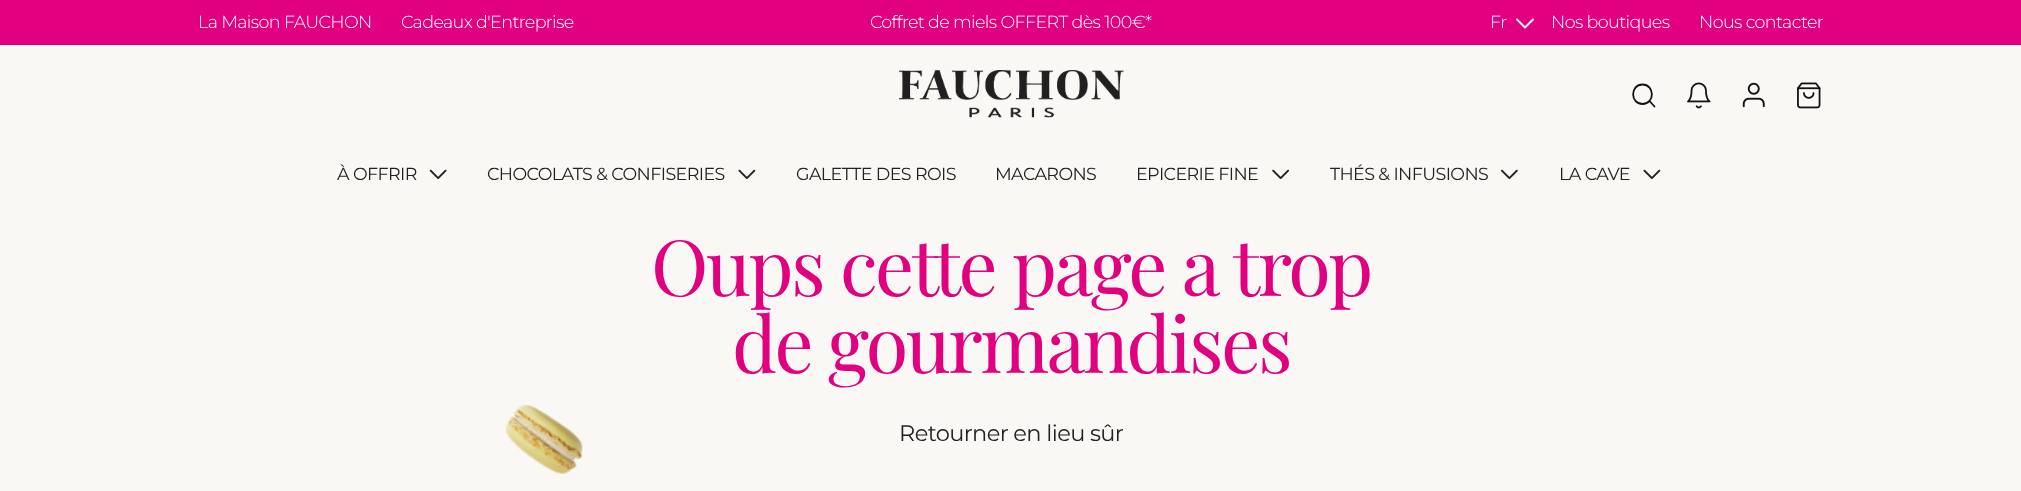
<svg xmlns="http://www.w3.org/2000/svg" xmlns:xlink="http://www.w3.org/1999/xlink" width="2021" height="491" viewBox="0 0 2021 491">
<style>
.cls-1{font:300 17.5px Montserrat;letter-spacing:-0.6px;fill:#ffffff}
.cls-2{font:17.5px Montserrat;letter-spacing:-0.6px;fill:#212121}
.cls-3{font:77.5px Playfair Display;letter-spacing:-2.5px;fill:#e10080}
.cls-4{font:22.5px Montserrat;letter-spacing:-0.6px;fill:#212121}
</style>
<rect width="100%" height="100%" fill="#f9f8f5"/>
<rect fill="#e10080" x="0" y="0" width="2021" height="44"/>
<rect fill="#d00177" x="0" y="44" width="2021" height="1"/>
<image xlink:href="image0.png" x="1516" y="18" width="18" height="11"/>
<image xlink:href="image1.png" x="899" y="70" width="225" height="48"/>
<path fill="none" stroke="#121212" stroke-width="1.8" stroke-linecap="round" stroke-linejoin="round" d="M1642.5 104C1655 104 1655 84.5 1642.5 84.5C1630 84.5 1630 104 1642.5 104ZM1654.5 106.5L1649.5 101"/>
<image xlink:href="image2.png" x="1687" y="82" width="24" height="27"/>
<image xlink:href="image3.png" x="1742" y="82" width="23" height="26"/>
<image xlink:href="image4.png" x="1797" y="82" width="24" height="27"/>
<image xlink:href="image5.png" x="429" y="169" width="18" height="10"/>
<image xlink:href="image6.png" x="738" y="169" width="18" height="10"/>
<image xlink:href="image7.png" x="1272" y="169" width="17" height="10"/>
<image xlink:href="image8.png" x="1501" y="169" width="17" height="10"/>
<image xlink:href="image6.png" x="1643" y="169" width="18" height="10"/>
<image xlink:href="image9.png" x="505" y="404" width="78" height="70"/>
<text class="cls-1" x="198" y="28">La Maison FAUCHON</text>
<text class="cls-1" x="401" y="28">Cadeaux d'Entreprise</text>
<text class="cls-1" x="870" y="28">Coffret de miels OFFERT dès 100€*</text>
<text class="cls-1" x="1490" y="28">Fr</text>
<text class="cls-1" x="1551" y="28">Nos boutiques</text>
<text class="cls-1" x="1699" y="28">Nous contacter</text>
<text class="cls-2" x="337" y="180">À OFFRIR</text>
<text class="cls-2" x="487" y="180">CHOCOLATS &amp; CONFISERIES</text>
<text class="cls-2" x="796" y="180">GALETTE DES ROIS</text>
<text class="cls-2" x="995" y="180">MACARONS</text>
<text class="cls-2" x="1136" y="180">EPICERIE FINE</text>
<text class="cls-2" x="1330" y="180">THÉS &amp; INFUSIONS</text>
<text class="cls-2" x="1559" y="180">LA CAVE</text>
<text class="cls-3" x="651" y="296">Oups cette page a trop</text>
<text class="cls-3" x="732" y="373">de gourmandises</text>
<text class="cls-4" x="899" y="441">Retourner en lieu sûr</text>
</svg>
